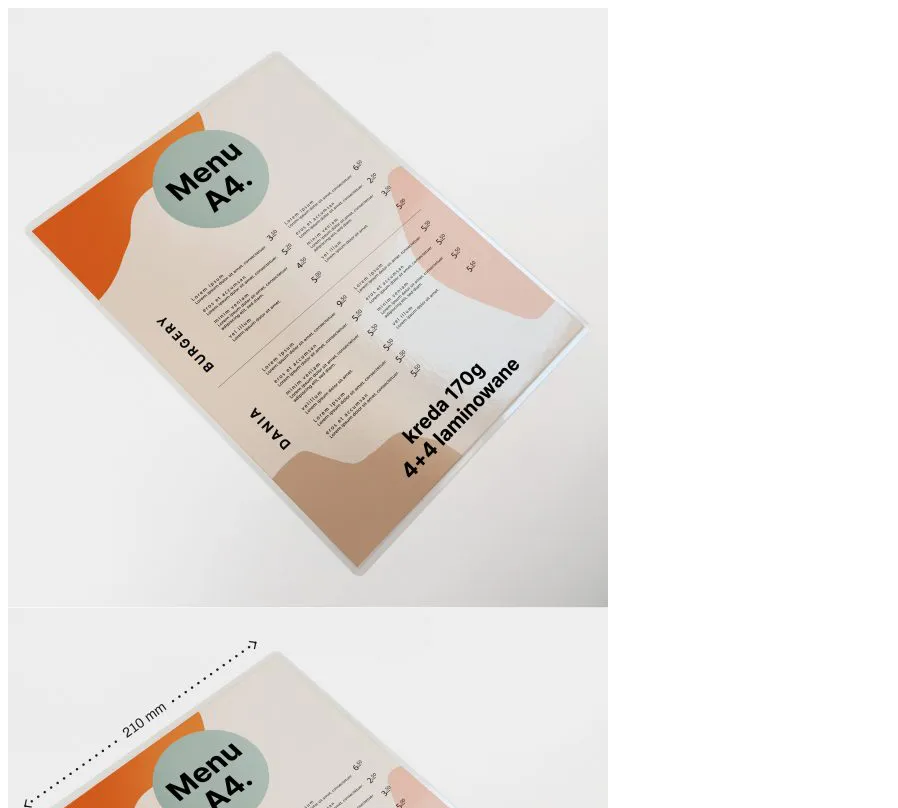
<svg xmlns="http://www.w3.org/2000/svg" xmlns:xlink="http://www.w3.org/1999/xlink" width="898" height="808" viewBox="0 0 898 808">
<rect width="100%" height="100%" fill="#ffffff"/>
<image xlink:href="image0.png" x="8" y="8" width="600" height="600"/>
<image xlink:href="image1.png" x="8" y="608" width="600" height="200"/>
</svg>
